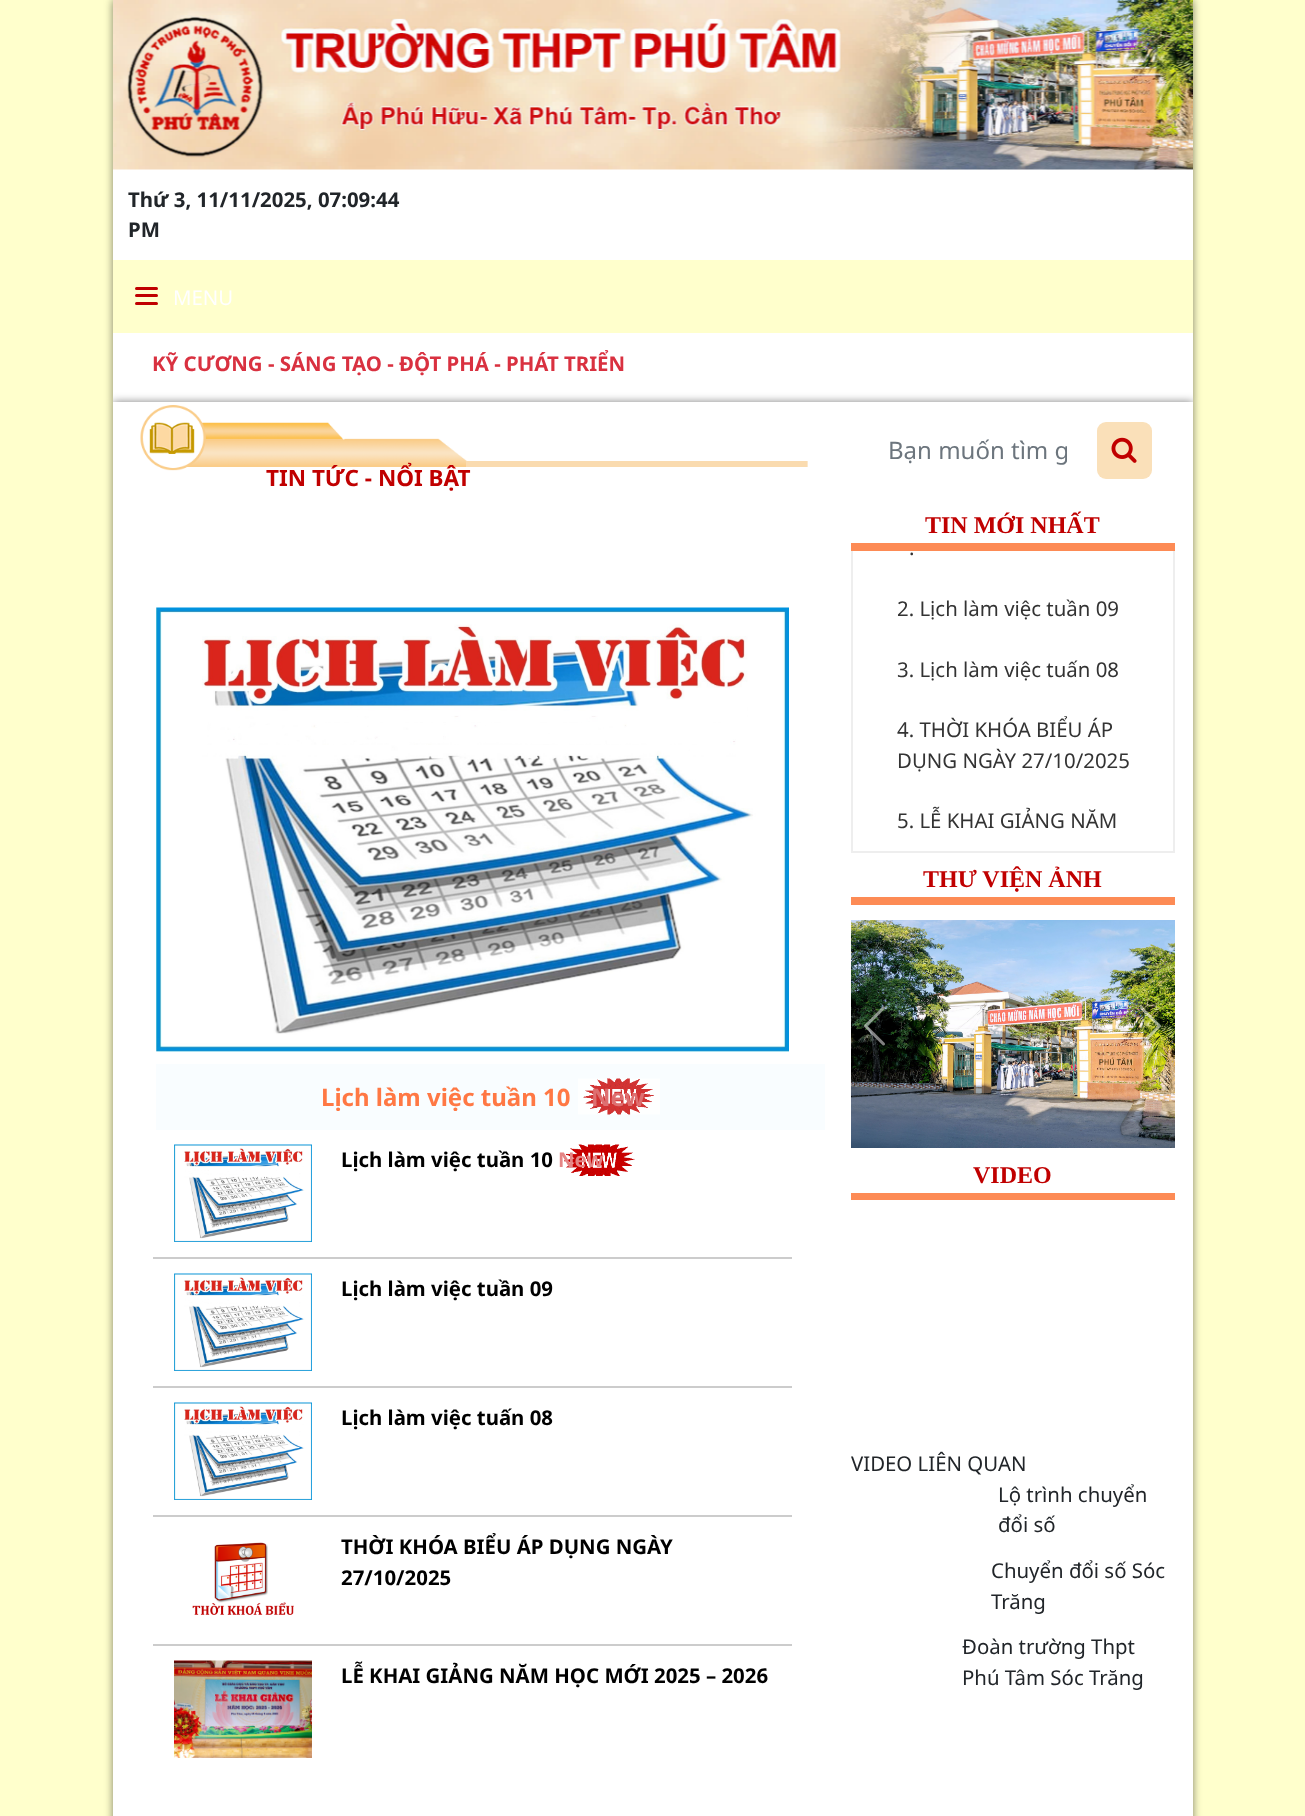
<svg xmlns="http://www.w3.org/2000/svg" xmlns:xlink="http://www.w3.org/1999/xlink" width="1305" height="1816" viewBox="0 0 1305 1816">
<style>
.cls-1{font:bold 20.4px Noto Sans;fill:#212529}
.cls-2{font:20.4px Noto Sans;fill:#ffffff}
.cls-3{font:bold 20.4px Noto Sans;fill:#d93140}
.cls-4{font:bold 22.5px Noto Sans;fill:#c00000}
.cls-5{font:bold 24px Noto Sans;fill:#ff7844}
.cls-6{font:bold 24px Noto Sans;fill:#de6f70}
.cls-7{font:bold 20.4px Noto Sans;fill:#000000}
.cls-8{font:bold 20.4px Noto Sans;fill:#e48585}
.cls-9{font:24px Noto Sans;fill:#6c757d}
.cls-10{font:bold 24px Liberation Serif;fill:#c00000}
.cls-11{font:20.4px Noto Sans;fill:#333333}
.cls-12{font:20.4px Noto Sans;fill:#212529}
</style>
<defs>
<clipPath id="clip1"><rect x="888" y="434" width="179" height="33"/></clipPath>
</defs>
<rect width="100%" height="100%" fill="#ffffcc"/>
<rect fill="#000000" fill-opacity="0.5" filter="blur(4px)" x="113" y="0" width="1080" height="402"/>
<rect fill="#ffffff" x="113" y="169" width="1080" height="233"/>
<image xlink:href="image0.png" x="113" y="0" width="1080" height="170"/>
<rect fill="#ffffcc" x="113" y="260" width="1080" height="73"/>
<rect fill="#c00000" x="135" y="287" width="23" height="3" rx="1.5"/>
<rect fill="#c00000" x="135" y="294" width="23" height="3" rx="1.5"/>
<rect fill="#c00000" x="135" y="302" width="23" height="3" rx="1.5"/>
<rect fill="#000000" fill-opacity="0.5" filter="blur(4px)" x="113" y="402" width="1080" height="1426"/>
<rect fill="#ffffff" x="113" y="402" width="1080" height="1414"/>
<image xlink:href="image1.png" x="140" y="405" width="668" height="66"/>
<image xlink:href="image2.png" x="156" y="607" width="633" height="445"/>
<rect fill="#f9fdff" x="156" y="1064" width="669" height="66"/>
<image xlink:href="image3.png" x="578" y="1078" width="82" height="37"/>
<rect fill="#cccccc" x="153" y="1257" width="639" height="2"/>
<image xlink:href="image4.png" x="174" y="1144" width="138" height="98"/>
<image xlink:href="image5.png" x="564" y="1144" width="71" height="32"/>
<rect fill="#cccccc" x="153" y="1386" width="639" height="2"/>
<image xlink:href="image4.png" x="174" y="1273" width="138" height="98"/>
<rect fill="#cccccc" x="153" y="1515" width="639" height="2"/>
<image xlink:href="image6.png" x="174" y="1402" width="138" height="98"/>
<rect fill="#cccccc" x="153" y="1644" width="639" height="2"/>
<image xlink:href="image7.png" x="192" y="1542" width="102" height="73"/>
<image xlink:href="image8.png" x="174" y="1660" width="138" height="98"/>
<rect fill="#fae0b9" x="1097" y="422" width="55" height="57" rx="9"/>
<image xlink:href="image9.png" x="1111" y="437" width="26" height="26"/>
<rect fill="#fd8b55" x="851" y="543" width="324" height="8"/>
<rect fill="#eeeeee" x="1173" y="551" width="2" height="301"/>
<rect fill="#eeeeee" x="851" y="851" width="324" height="2"/>
<rect fill="#eeeeee" x="851" y="551" width="2" height="301"/>
<rect fill="#fd8b55" x="851" y="897" width="324" height="8"/>
<image xlink:href="image10.png" x="851" y="920" width="324" height="228"/>
<image xlink:href="image11.png" x="864" y="1006" width="21" height="40"/>
<image xlink:href="image12.png" x="1140" y="1006" width="21" height="40"/>
<rect fill="#fd8b55" x="851" y="1193" width="324" height="7"/>
<text class="cls-1"><tspan x="128" y="207">Thứ 3, 11/11/2025, 07:09:44</tspan><tspan x="128" y="237">PM</tspan></text>
<text class="cls-2" x="173" y="305">MENU</text>
<text class="cls-3" x="152" y="371">KỸ CƯƠNG - SÁNG TẠO - ĐỘT PHÁ - PHÁT TRIỂN</text>
<text class="cls-4" x="266" y="486">TIN TỨC - NỔI BẬT</text>
<text class="cls-5" x="321" y="1106">Lịch làm việc tuần 10</text>
<text class="cls-6" x="591" y="1106">New</text>
<text class="cls-7" x="341" y="1167">Lịch làm việc tuần 10</text>
<text class="cls-8" x="558" y="1167">New</text>
<text class="cls-7" x="341" y="1296">Lịch làm việc tuần 09</text>
<text class="cls-7" x="341" y="1425">Lịch làm việc tuấn 08</text>
<text class="cls-7"><tspan x="341" y="1554">THỜI KHÓA BIỂU ÁP DỤNG NGÀY</tspan><tspan x="341" y="1585">27/10/2025</tspan></text>
<text class="cls-7" x="341" y="1683">LỄ KHAI GIẢNG NĂM HỌC MỚI 2025 – 2026</text>
<g clip-path="url(#clip1)">
<text class="cls-9" x="888" y="459">Bạn muốn tìm g</text>
</g>
<text class="cls-10" x="925" y="533">TIN MỚI NHẤT</text>
<text class="cls-11" x="909" y="555">.</text>
<text class="cls-11" x="897" y="616">2. Lịch làm việc tuần 09</text>
<text class="cls-11" x="897" y="677">3. Lịch làm việc tuấn 08</text>
<text class="cls-11"><tspan x="897" y="737">4. THỜI KHÓA BIỂU ÁP</tspan><tspan x="897" y="768">DỤNG NGÀY 27/10/2025</tspan></text>
<text class="cls-11" x="897" y="828">5. LỄ KHAI GIẢNG NĂM</text>
<text class="cls-10" x="923" y="887">THƯ VIỆN ẢNH</text>
<text class="cls-10" x="973" y="1183">VIDEO</text>
<text class="cls-12" x="851" y="1471">VIDEO LIÊN QUAN</text>
<text class="cls-12"><tspan x="998" y="1502">Lộ trình chuyển</tspan><tspan x="998" y="1532">đổi số</tspan></text>
<text class="cls-12"><tspan x="991" y="1578">Chuyển đổi số Sóc</tspan><tspan x="991" y="1609">Trăng</tspan></text>
<text class="cls-12"><tspan x="962" y="1654">Đoàn trường Thpt</tspan><tspan x="962" y="1685">Phú Tâm Sóc Trăng</tspan></text>
</svg>
